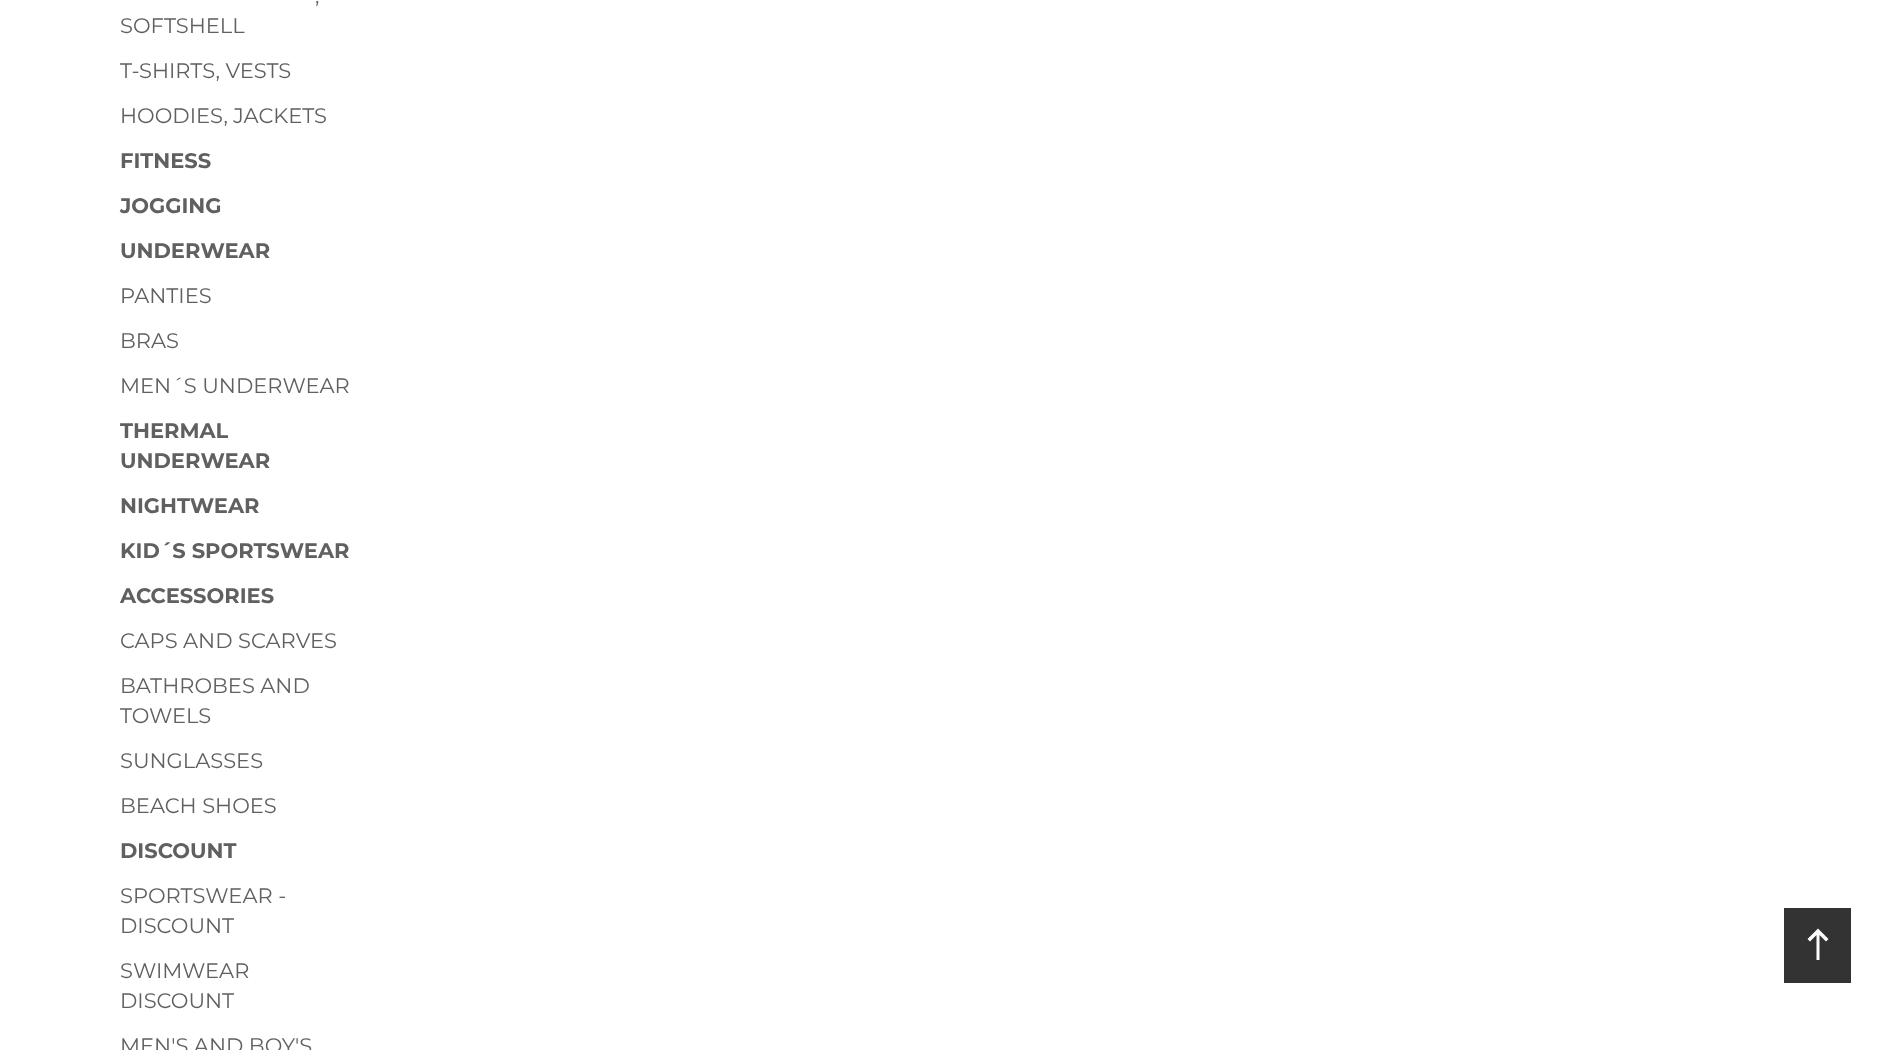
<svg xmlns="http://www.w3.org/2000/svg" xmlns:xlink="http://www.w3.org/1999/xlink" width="1896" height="1050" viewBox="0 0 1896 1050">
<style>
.cls-1{font:100 21px Montserrat;fill:#606060}
.cls-2{font:bold 21px Montserrat;fill:#606060}
</style>
<rect width="100%" height="100%" fill="#ffffff"/>
<rect fill="#333333" x="1784" y="908" width="67" height="75"/>
<path fill="#ffffff" d="M1816.5 960V935L1810 941.5L1807.5 939L1818 928.5L1828.5 939L1826 941.5L1819.5 935V960Z"/>
<text class="cls-1" x="315" y="3">,</text>
<text class="cls-1" x="120" y="33">SOFTSHELL</text>
<text class="cls-1" x="120" y="78">T-SHIRTS, VESTS</text>
<text class="cls-1" x="120" y="123">HOODIES, JACKETS</text>
<text class="cls-2" x="120" y="168">FITNESS</text>
<text class="cls-2" x="120" y="213">JOGGING</text>
<text class="cls-2" x="120" y="258">UNDERWEAR</text>
<text class="cls-1" x="120" y="303">PANTIES</text>
<text class="cls-1" x="120" y="348">BRAS</text>
<text class="cls-1" x="120" y="393">MEN´S UNDERWEAR</text>
<text class="cls-2"><tspan x="120" y="438">THERMAL</tspan><tspan x="120" y="468">UNDERWEAR</tspan></text>
<text class="cls-2" x="120" y="513">NIGHTWEAR</text>
<text class="cls-2" x="120" y="558">KID´S SPORTSWEAR</text>
<text class="cls-2" x="120" y="603">ACCESSORIES</text>
<text class="cls-1" x="120" y="648">CAPS AND SCARVES</text>
<text class="cls-1"><tspan x="120" y="693">BATHROBES AND</tspan><tspan x="120" y="723">TOWELS</tspan></text>
<text class="cls-1" x="120" y="768">SUNGLASSES</text>
<text class="cls-1" x="120" y="813">BEACH SHOES</text>
<text class="cls-2" x="120" y="858">DISCOUNT</text>
<text class="cls-1"><tspan x="120" y="903">SPORTSWEAR -</tspan><tspan x="120" y="933">DISCOUNT</tspan></text>
<text class="cls-1"><tspan x="120" y="978">SWIMWEAR</tspan><tspan x="120" y="1008">DISCOUNT</tspan></text>
<text class="cls-1" x="120" y="1053">MEN'S AND BOY'S</text>
</svg>
